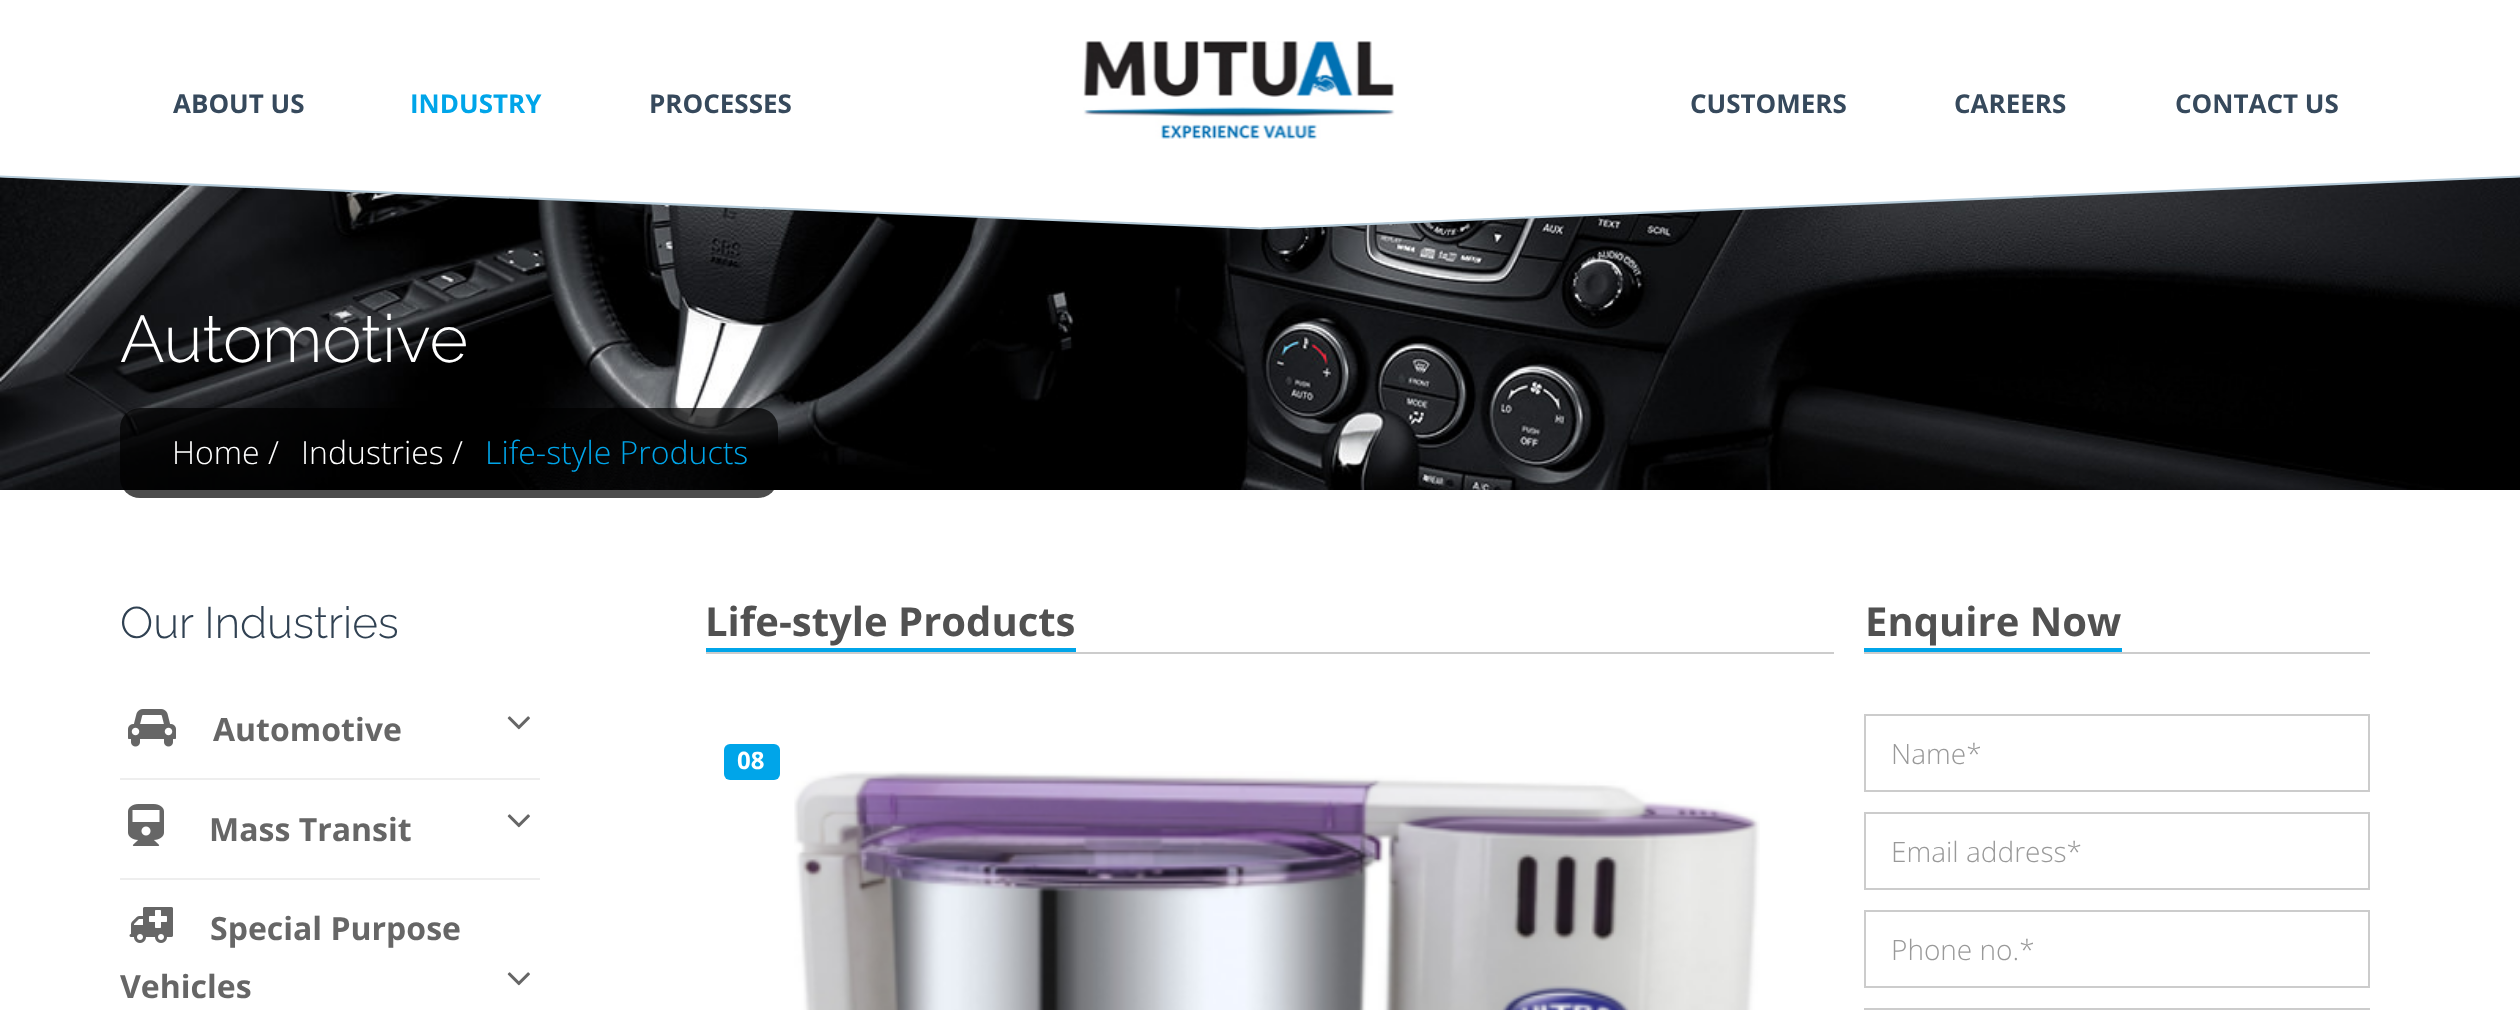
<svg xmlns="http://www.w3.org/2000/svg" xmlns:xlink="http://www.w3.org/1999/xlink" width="2520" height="1010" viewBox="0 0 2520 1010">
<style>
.cls-1{font:bold 26px Open Sans;fill:#36495c}
.cls-2{font:bold 26px Open Sans;fill:#00a5e9}
.cls-3{font:100 66px Raleway;fill:#ffffff}
.cls-4{font:300 32px Open Sans;fill:#ffffff}
.cls-5{font:300 32px Open Sans;fill:#00a5e9}
.cls-6{font:100 44px Raleway;fill:#304152}
.cls-7{font:bold 32px Open Sans;fill:#666666}
.cls-8{font:bold 40px Open Sans;fill:#515151}
.cls-9{font:bold 24px Open Sans;fill:#ffffff}
.cls-10{font:300 28px Open Sans;fill:#999999}
</style>
<rect width="100%" height="100%" fill="#ffffff"/>
<image xlink:href="image0.png" x="1083" y="41" width="312" height="98"/>
<image xlink:href="image1.png" x="0" y="177" width="2520" height="313"/>
<path fill="#ffffff" d="M0 160V177L1260 228L2520 177V160Z"/>
<path fill="none" stroke="#b5cbd9" stroke-width="2.2" d="M0 176.5L1260 228.5L2520 176.5"/>
<rect fill="#000000" fill-opacity="0.7" x="120" y="408" width="658" height="90" rx="20"/>
<rect fill="#eeeeee" x="120" y="778" width="420" height="2"/>
<image xlink:href="image2.png" x="128" y="709" width="48" height="38"/>
<image xlink:href="image3.png" x="507" y="716" width="23" height="14"/>
<rect fill="#eeeeee" x="120" y="878" width="420" height="2"/>
<image xlink:href="image4.png" x="128" y="804" width="36" height="42"/>
<image xlink:href="image3.png" x="507" y="814" width="23" height="14"/>
<image xlink:href="image5.png" x="129" y="907" width="44" height="36"/>
<image xlink:href="image3.png" x="507" y="972" width="23" height="14"/>
<rect fill="#cccccc" x="706" y="652" width="1128" height="2"/>
<rect fill="#00a5e9" x="706" y="648" width="370" height="4"/>
<rect fill="#00a5e9" x="724" y="744" width="56" height="36" rx="6"/>
<image xlink:href="image6.png" x="794" y="771" width="966" height="239"/>
<rect fill="#cccccc" x="1864" y="652" width="506" height="2"/>
<rect fill="#00a5e9" x="1864" y="648" width="258" height="4"/>
<rect fill="none" stroke="#cccccc" stroke-width="2" x="1865" y="715" width="504" height="76"/>
<rect fill="none" stroke="#cccccc" stroke-width="2" x="1865" y="813" width="504" height="76"/>
<rect fill="none" stroke="#cccccc" stroke-width="2" x="1865" y="911" width="504" height="76"/>
<rect fill="none" stroke="#cccccc" stroke-width="2" x="1865" y="1009" width="504" height="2"/>
<text class="cls-1" x="173" y="113">ABOUT US</text>
<text class="cls-2" x="410" y="113">INDUSTRY</text>
<text class="cls-1" x="649" y="113">PROCESSES</text>
<text class="cls-1" x="1690" y="113">CUSTOMERS</text>
<text class="cls-1" x="1954" y="113">CAREERS</text>
<text class="cls-1" x="2175" y="113">CONTACT US</text>
<text class="cls-3" x="120" y="362">Automotive</text>
<text class="cls-4" x="172" y="464">Home /</text>
<text class="cls-4" x="301" y="464">Industries /</text>
<text class="cls-5" x="485" y="464">Life-style Products</text>
<text class="cls-6" x="120" y="638">Our Industries</text>
<text class="cls-7" x="213" y="741">Automotive</text>
<text class="cls-7" x="209" y="841">Mass Transit</text>
<text class="cls-7" x="210" y="940">Special Purpose</text>
<text class="cls-7" x="120" y="998">Vehicles</text>
<text class="cls-8" x="705" y="636">Life-style Products</text>
<text class="cls-9" x="737" y="769">08</text>
<text class="cls-8" x="1865" y="636">Enquire Now</text>
<text class="cls-10" x="1891" y="764">Name*</text>
<text class="cls-10" x="1891" y="862">Email address*</text>
<text class="cls-10" x="1891" y="960">Phone no.*</text>
</svg>
